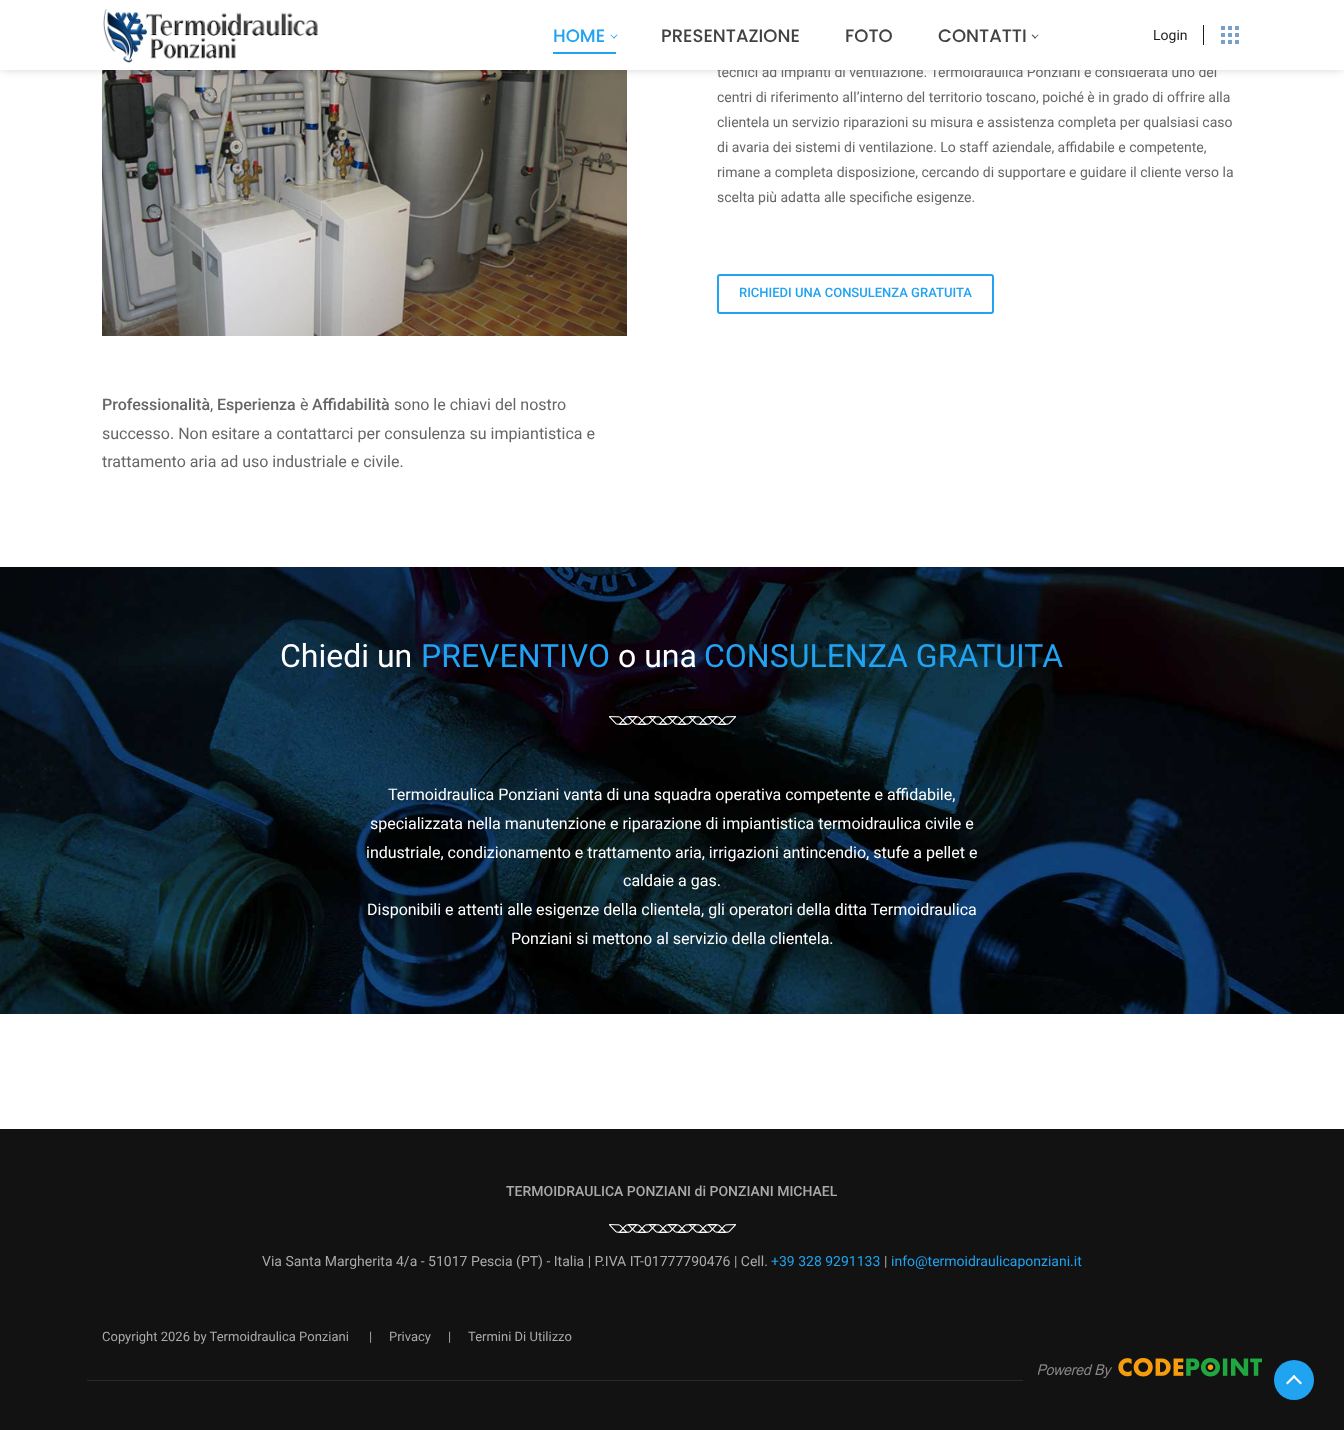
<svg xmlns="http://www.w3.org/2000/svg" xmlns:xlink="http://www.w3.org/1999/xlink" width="1344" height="1430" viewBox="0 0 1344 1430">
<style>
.cls-1{font:14px Roboto;fill:#666666}
.cls-2{font:14px Roboto;fill:#1e1e1e}
.cls-3{font:500 18px Poppins;fill:#424242}
.cls-4{font:500 18px Poppins;fill:#20a3f0}
.cls-5{font:500 13px Roboto;fill:#20a3f0}
.cls-6{font:500 16px Roboto;fill:#666666}
.cls-7{font:16px Roboto;fill:#666666}
.cls-8{font:32px Roboto;fill:#ffffff}
.cls-9{font:32px Roboto;fill:#20a3f0}
.cls-10{font:16px Roboto;fill:#ffffff}
.cls-11{font:500 14px Roboto;fill:#aaaaaa}
.cls-12{font:14px Roboto;fill:#aaaaaa}
.cls-13{font:14px Roboto;fill:#20a3f0}
.cls-14{font:13px Roboto;fill:#aaaaaa}
</style>
<rect width="100%" height="100%" fill="#ffffff"/>
<image xlink:href="image1.png" x="102" y="70" width="525" height="266"/>
<rect fill="#000000" fill-opacity="0.2" filter="blur(5px)" x="1" y="21" width="1342" height="48"/>
<rect fill="none" stroke="#20a3f0" stroke-width="2" x="718" y="275" width="275" height="38" rx="2"/>
<image xlink:href="image2.png" x="0" y="567" width="1344" height="447"/>
<image xlink:href="image3.png" x="609" y="716" width="127" height="9"/>
<rect fill="#121212" x="0" y="1129" width="1344" height="301"/>
<image xlink:href="image4.png" x="609" y="1224" width="127" height="9"/>
<rect fill="#2a2a2a" x="87" y="1380" width="936" height="1"/>
<image xlink:href="image5.png" x="1038" y="1358" width="224" height="20"/>
<circle fill="#20a3f0" cx="1294" cy="1380" r="20"/>
<path fill="#ffffff" d="M1286 1383L1294 1375L1295.5 1376.5L1287.5 1384.5Z"/>
<path fill="#ffffff" d="M1292.5 1376.5L1294 1375L1302 1383L1300.5 1384.5Z"/>
<text class="cls-1" x="717" y="77">tecnici ad impianti di ventilazione. Termoidraulica Ponziani è considerata uno dei</text>
<rect fill="#ffffff" x="0" y="13" width="1344" height="57"/>
<rect fill="#77a0cc" x="1235" y="40" width="4" height="4"/>
<rect fill="#77a0cc" x="1228" y="40" width="4" height="4"/>
<rect fill="#77a0cc" x="1221" y="40" width="4" height="4"/>
<rect fill="#77a0cc" x="1235" y="33" width="4" height="4"/>
<rect fill="#77a0cc" x="1228" y="33" width="4" height="4"/>
<rect fill="#77a0cc" x="1221" y="33" width="4" height="4"/>
<rect fill="#77a0cc" x="1235" y="26" width="4" height="4"/>
<rect fill="#77a0cc" x="1228" y="26" width="4" height="4"/>
<rect fill="#77a0cc" x="1221" y="26" width="4" height="4"/>
<text class="cls-2" x="1153" y="40">Login</text>
<rect fill="#20a3f0" x="553" y="52" width="63" height="2"/>
<path fill="#424242" d="M1038 34.5L1038.5 35L1035 38.5L1034.5 38Z"/>
<path fill="#424242" d="M1032.5 34.5L1036 38L1035 38.5L1031.5 35Z"/>
<text class="cls-3" x="938" y="42">CONTATTI</text>
<text class="cls-3" x="845" y="42">FOTO</text>
<text class="cls-3" x="661" y="42">PRESENTAZIONE</text>
<path fill="#20a3f0" d="M617 34.5L617.5 35L614 38.5L613 38Z"/>
<path fill="#20a3f0" d="M611 34.5L614.5 38L614 38.5L610.5 35Z"/>
<text class="cls-4" x="553" y="42">HOME</text>
<image xlink:href="image0.png" x="103" y="9" width="216" height="54"/>
<rect fill="#1e1e1e" x="1203" y="25" width="1" height="20"/>
<text class="cls-1"><tspan x="717" y="102">centri di riferimento all’interno del territorio toscano, poiché è in grado di offrire alla</tspan><tspan x="717" y="127">clientela un servizio riparazioni su misura e assistenza completa per qualsiasi caso</tspan><tspan x="717" y="152">di avaria dei sistemi di ventilazione. Lo staff aziendale, affidabile e competente,</tspan><tspan x="717" y="177">rimane a completa disposizione, cercando di supportare e guidare il cliente verso la</tspan><tspan x="717" y="202">scelta più adatta alle specifiche esigenze.</tspan></text>
<text class="cls-5" x="739" y="297">RICHIEDI UNA CONSULENZA GRATUITA</text>
<text class="cls-6" x="102" y="410">Professionalità</text>
<text class="cls-7" x="210" y="410">,</text>
<text class="cls-6" x="217" y="410">Esperienza</text>
<text class="cls-7" x="300" y="410">è</text>
<text class="cls-6" x="312" y="410">Affidabilità</text>
<text class="cls-7" x="394" y="410">sono le chiavi del nostro</text>
<text class="cls-7"><tspan x="102" y="439">successo. Non esitare a contattarci per consulenza su impiantistica e</tspan><tspan x="102" y="467">trattamento aria ad uso industriale e civile.</tspan></text>
<text class="cls-8" x="280" y="667">Chiedi un</text>
<text class="cls-9" x="421" y="667">PREVENTIVO</text>
<text class="cls-8" x="618" y="667">o una</text>
<text class="cls-9" x="704" y="667">CONSULENZA GRATUITA</text>
<text class="cls-10" x="388" y="800">Termoidraulica Ponziani vanta di una squadra operativa competente e affidabile,</text>
<text class="cls-10" x="370" y="829">specializzata nella manutenzione e riparazione di impiantistica termoidraulica civile e</text>
<text class="cls-10" x="366" y="858">industriale, condizionamento e trattamento aria, irrigazioni antincendio, stufe a pellet e</text>
<text class="cls-10" x="623" y="886">caldaie a gas.</text>
<text class="cls-10" x="367" y="915">Disponibili e attenti alle esigenze della clientela, gli operatori della ditta Termoidraulica</text>
<text class="cls-10" x="511" y="944">Ponziani si mettono al servizio della clientela.</text>
<text class="cls-11" x="506" y="1196">TERMOIDRAULICA PONZIANI di PONZIANI MICHAEL</text>
<text class="cls-12" x="262" y="1266">Via Santa Margherita 4/a - 51017 Pescia (PT) - Italia | P.IVA IT-01777790476 | Cell.</text>
<text class="cls-13" x="771" y="1266">+39 328 9291133</text>
<text class="cls-12" x="884" y="1266">|</text>
<text class="cls-13" x="891" y="1266">info@termoidraulicaponziani.it</text>
<text class="cls-14" x="102" y="1341">Copyright 2026 by Termoidraulica Ponziani</text>
<text class="cls-14" x="369" y="1341">|</text>
<text class="cls-14" x="389" y="1341">Privacy</text>
<text class="cls-14" x="448" y="1341">|</text>
<text class="cls-14" x="468" y="1341">Termini Di Utilizzo</text>
</svg>
